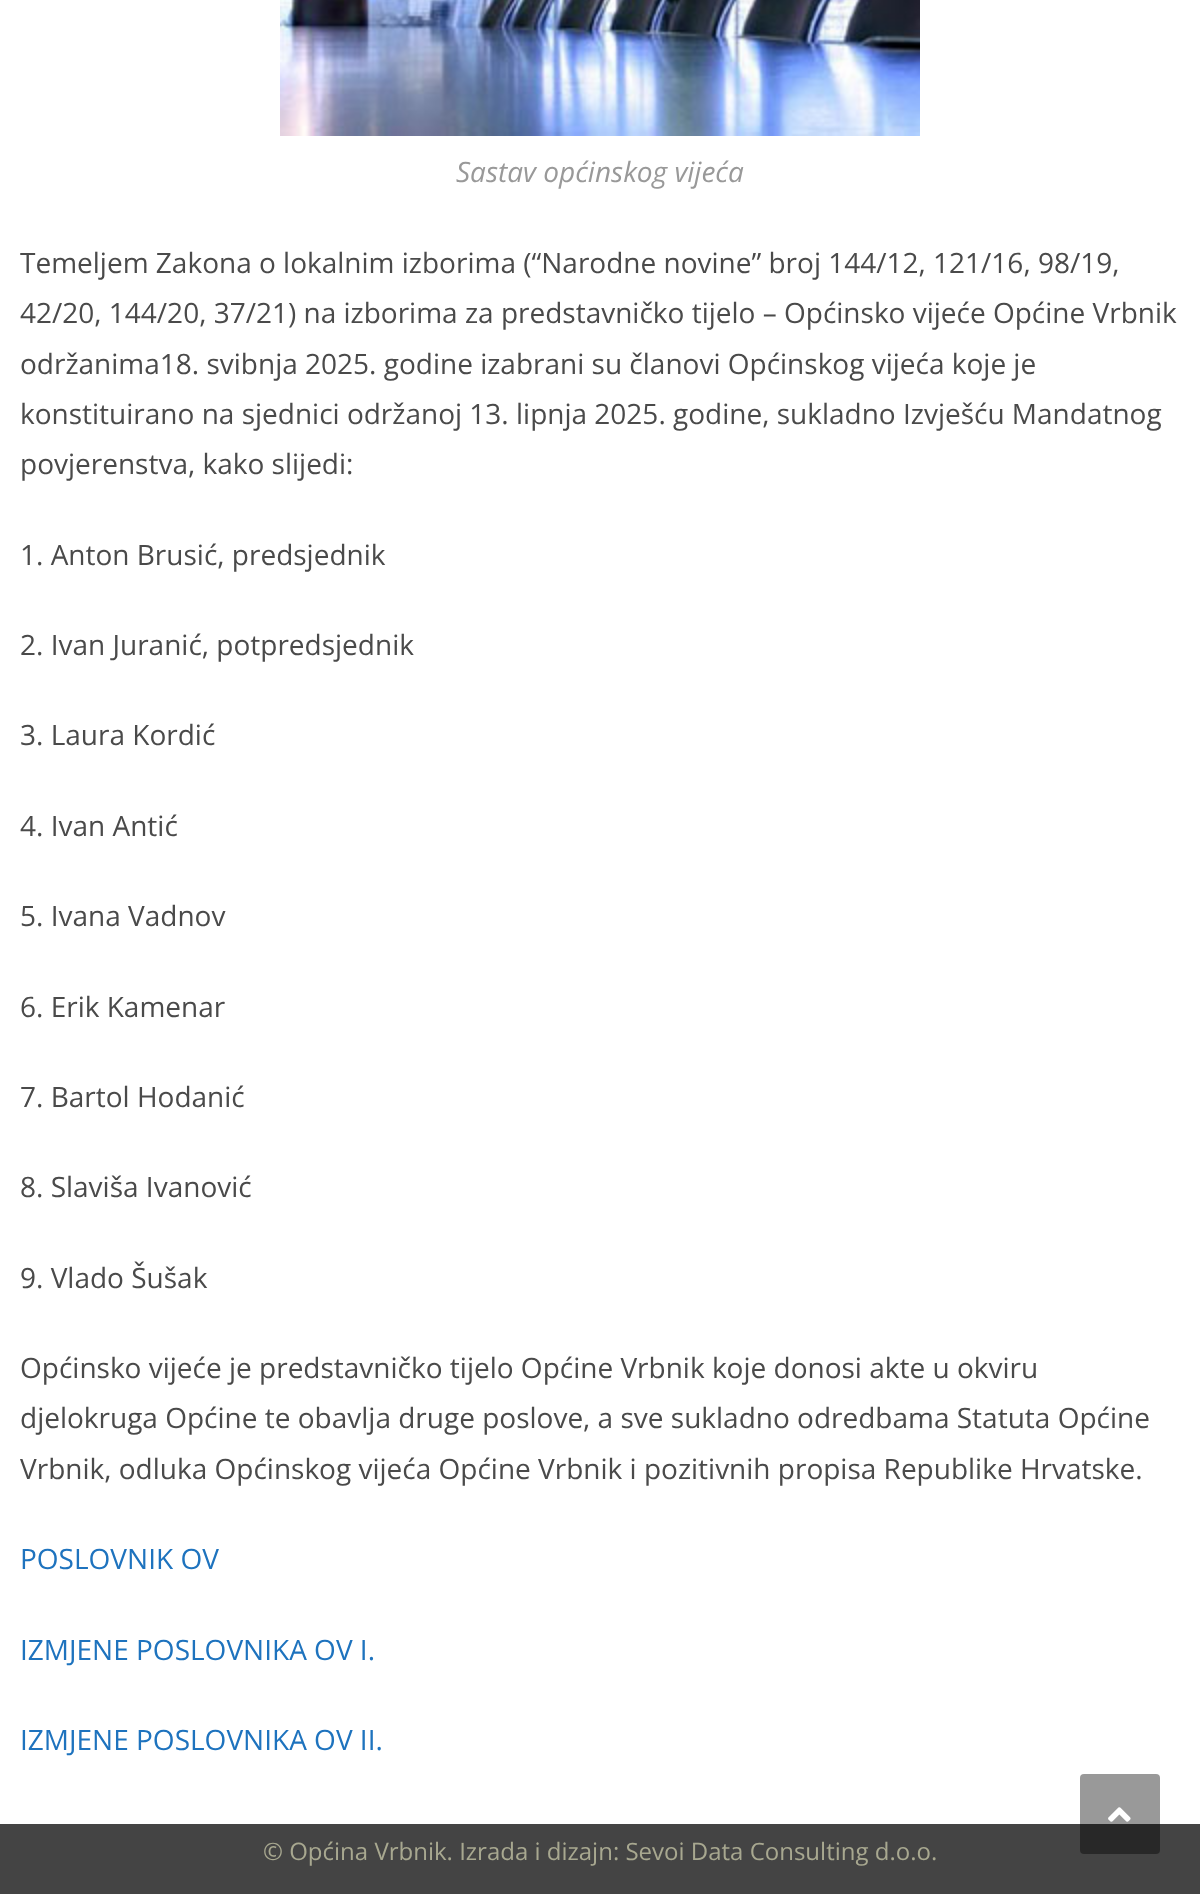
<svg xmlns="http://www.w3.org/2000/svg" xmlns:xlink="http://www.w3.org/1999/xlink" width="1200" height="1894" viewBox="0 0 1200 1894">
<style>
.cls-1{font:italic 28px Open Sans;fill:#999999}
.cls-2{font:28px Open Sans;fill:#4a4a4a}
.cls-3{font:28px Open Sans;fill:#1e73be}
.cls-4{font:24px Open Sans;fill:#a8a890}
</style>
<rect width="100%" height="100%" fill="#ffffff"/>
<image xlink:href="image0.png" x="280" y="0" width="640" height="136"/>
<rect fill="#444444" x="0" y="1824" width="1200" height="70"/>
<rect fill="#000000" fill-opacity="0.4" x="1080" y="1774" width="80" height="80" rx="4"/>
<image xlink:href="image1.png" x="1108" y="1807" width="23" height="15"/>
<text class="cls-1" x="456" y="182">Sastav općinskog vijeća</text>
<text class="cls-2"><tspan x="20" y="273">Temeljem Zakona o lokalnim izborima (“Narodne novine” broj 144/12, 121/16, 98/19,</tspan><tspan x="20" y="323">42/20, 144/20, 37/21) na izborima za predstavničko tijelo – Općinsko vijeće Općine Vrbnik</tspan><tspan x="20" y="374">održanima18. svibnja 2025. godine izabrani su članovi Općinskog vijeća koje je</tspan><tspan x="20" y="424">konstituirano na sjednici održanoj 13. lipnja 2025. godine, sukladno Izvješću Mandatnog</tspan><tspan x="20" y="474">povjerenstva, kako slijedi:</tspan></text>
<text class="cls-2" x="20" y="565">1. Anton Brusić, predsjednik</text>
<text class="cls-2" x="20" y="655">2. Ivan Juranić, potpredsjednik</text>
<text class="cls-2" x="20" y="745">3. Laura Kordić</text>
<text class="cls-2" x="20" y="836">4. Ivan Antić</text>
<text class="cls-2" x="20" y="926">5. Ivana Vadnov</text>
<text class="cls-2" x="20" y="1017">6. Erik Kamenar</text>
<text class="cls-2" x="20" y="1107">7. Bartol Hodanić</text>
<text class="cls-2" x="20" y="1197">8. Slaviša Ivanović</text>
<text class="cls-2" x="20" y="1288">9. Vlado Šušak</text>
<text class="cls-2"><tspan x="20" y="1378">Općinsko vijeće je predstavničko tijelo Općine Vrbnik koje donosi akte u okviru</tspan><tspan x="20" y="1428">djelokruga Općine te obavlja druge poslove, a sve sukladno odredbama Statuta Općine</tspan><tspan x="20" y="1479">Vrbnik, odluka Općinskog vijeća Općine Vrbnik i pozitivnih propisa Republike Hrvatske.</tspan></text>
<text class="cls-3" x="20" y="1569">POSLOVNIK OV</text>
<text class="cls-3" x="20" y="1660">IZMJENE POSLOVNIKA OV I.</text>
<text class="cls-3" x="20" y="1750">IZMJENE POSLOVNIKA OV II.</text>
<text class="cls-4" x="263" y="1860">© Općina Vrbnik. Izrada i dizajn: Sevoi Data Consulting d.o.o.</text>
</svg>
